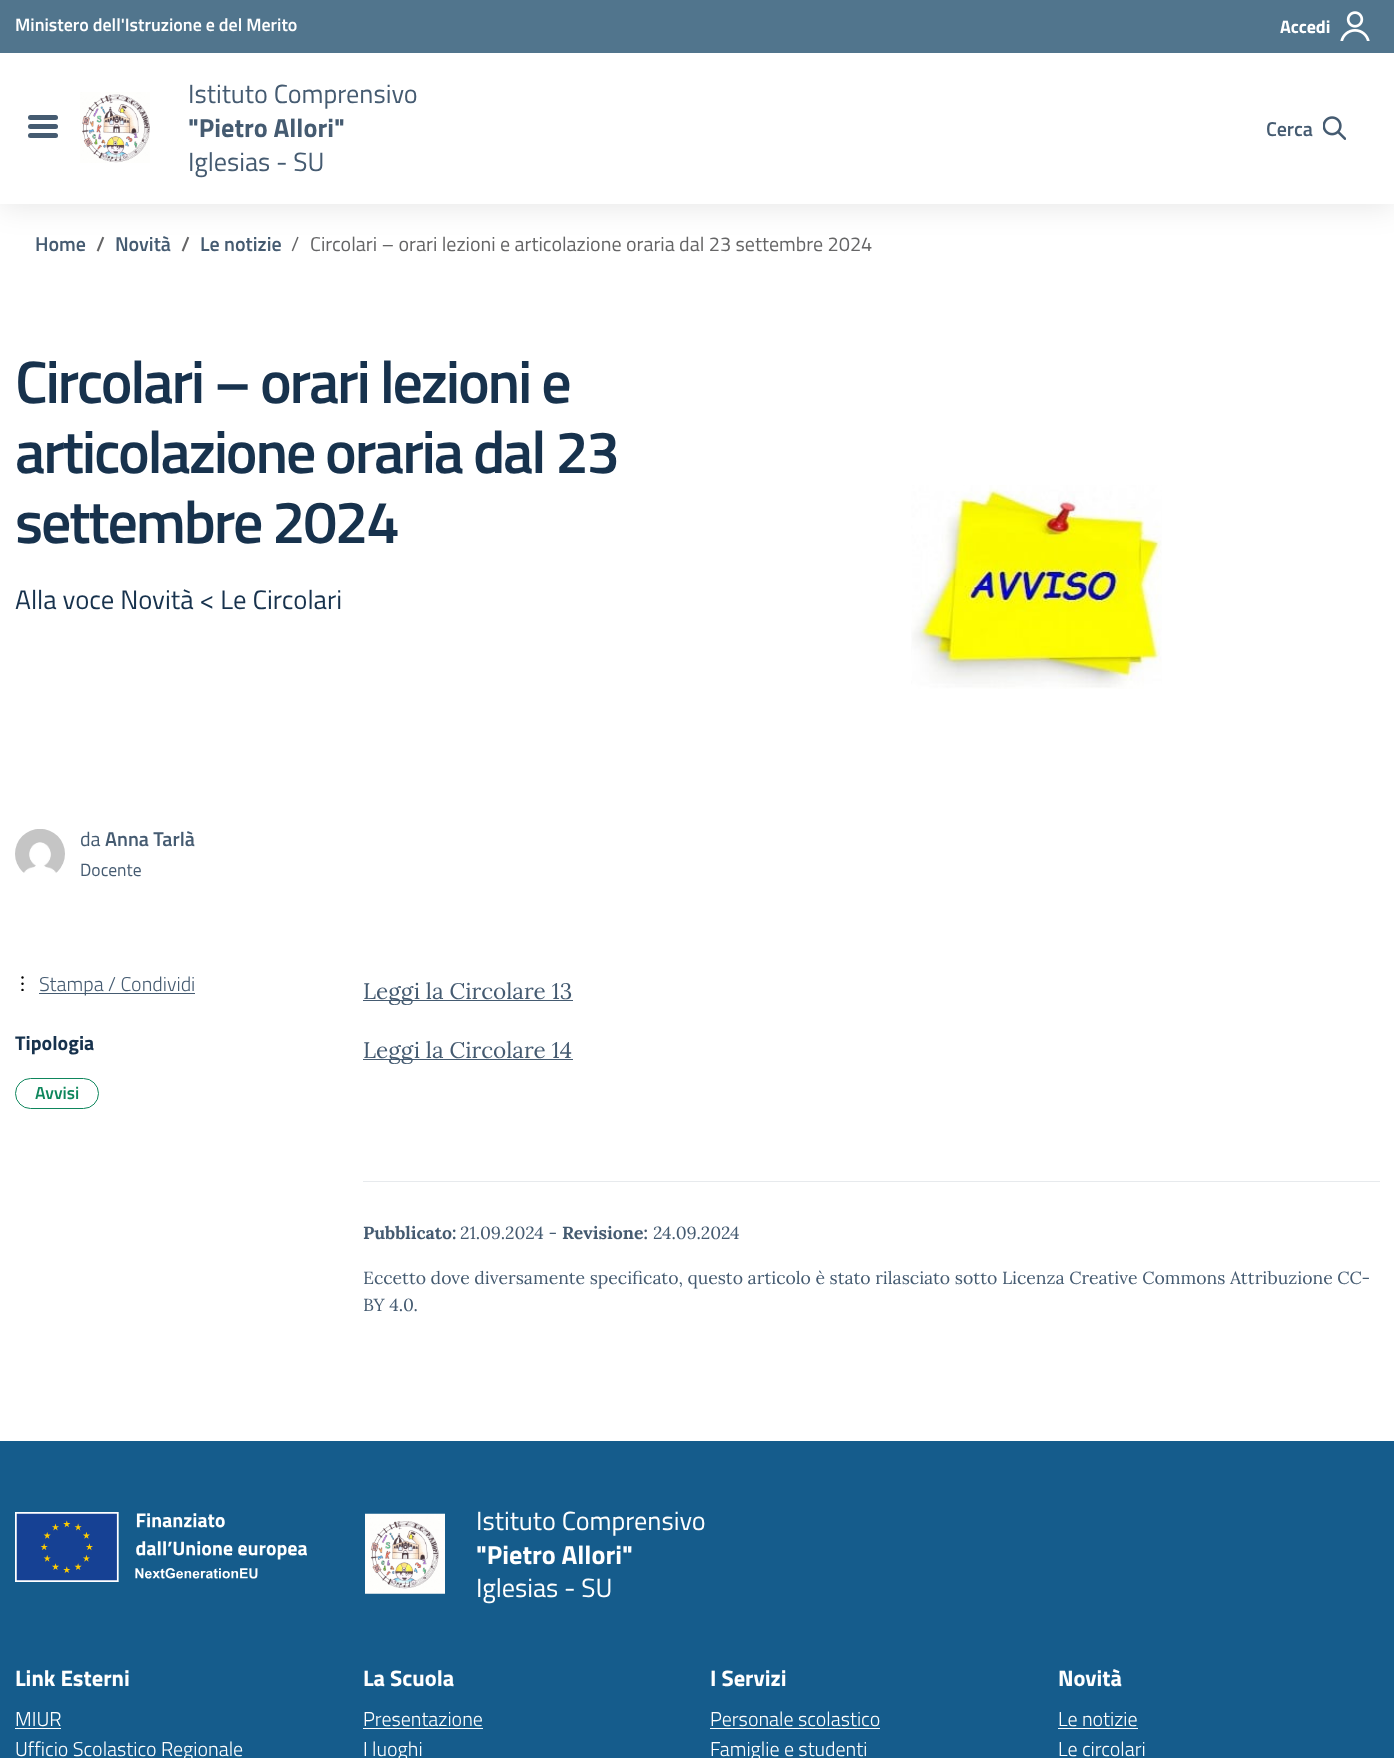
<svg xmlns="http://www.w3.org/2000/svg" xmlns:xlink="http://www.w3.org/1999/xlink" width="1394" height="1758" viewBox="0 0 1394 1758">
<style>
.cls-1{font:600 18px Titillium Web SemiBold;fill:#ffffff}
.cls-2{font:bold 18px Titillium Web;fill:#ffffff}
.cls-3{font:26.25px Titillium Web;fill:#455b71}
.cls-4{font:bold 26.25px Titillium Web;fill:#455b71}
.cls-5{font:600 20px Titillium Web SemiBold;fill:#455b71}
.cls-6{font:600 20px Titillium Web SemiBold;fill:#656566}
.cls-7{font:20px Titillium Web;fill:#656566}
.cls-8{font:600 60px Titillium Web SemiBold;letter-spacing:-2.25px;fill:#17324d}
.cls-9{font:26.75px Titillium Web;fill:#17324d}
.cls-10{font:20px Titillium Web;fill:#455b71}
.cls-11{font:17.6px Titillium Web;fill:#455b71}
.cls-12{font:300 20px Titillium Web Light;fill:#455b71}
.cls-13{font:bold 20px Titillium Web;fill:#17324d}
.cls-14{font:600 17.6px Titillium Web SemiBold;fill:#0e865c}
.cls-15{font:22.5px Lora;fill:#455b71}
.cls-16{font:bold 17.6px Lora;fill:#455b71}
.cls-17{font:17.6px Lora;fill:#455b71}
.cls-18{font:26.25px Titillium Web;fill:#ffffff}
.cls-19{font:bold 26.25px Titillium Web;fill:#ffffff}
.cls-20{font:bold 22.5px Titillium Web;fill:#ffffff}
.cls-21{font:300 20px Titillium Web Light;fill:#ffffff}
</style>
<rect width="100%" height="100%" fill="#ffffff"/>
<rect fill="#000000" fill-opacity="0.1" filter="blur(15.5px)" x="0" y="3" width="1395" height="203"/>
<rect fill="#ffffff" x="0" y="53" width="1394" height="151"/>
<rect fill="#51758d" x="0" y="0" width="1394" height="53"/>
<image xlink:href="image0.png" x="1340" y="11" width="30" height="30"/>
<rect fill="#455b71" x="28" y="124" width="30" height="5" rx="2.5"/>
<rect fill="#455b71" x="28" y="115" width="30" height="5" rx="2.5"/>
<rect fill="#455b71" x="28" y="133" width="30" height="5" rx="2.5"/>
<image xlink:href="image1.png" x="80" y="92" width="70" height="71"/>
<image xlink:href="image2.png" x="1323" y="116" width="23" height="24"/>
<image xlink:href="image3.png" x="15" y="829" width="50" height="44"/>
<image xlink:href="image4.png" x="911" y="485" width="251" height="204"/>
<image xlink:href="image5.png" x="21" y="976" width="3" height="15"/>
<rect fill="#455b71" x="39" y="993" width="156" height="1"/>
<rect fill="none" stroke="#0e865c" x="15.5" y="1078.5" width="83" height="30" rx="15"/>
<rect fill="#455b71" x="363" y="1000" width="210" height="1"/>
<rect fill="#455b71" x="363" y="1059" width="210" height="1"/>
<rect fill="#e7eaed" x="363" y="1181" width="1017" height="1"/>
<rect fill="#155c8c" x="0" y="1441" width="1394" height="317"/>
<image xlink:href="image6.png" x="15" y="1512" width="292" height="70"/>
<image xlink:href="image7.png" x="365" y="1513" width="80" height="81"/>
<rect fill="#ffffff" x="15" y="1728" width="46" height="1"/>
<rect fill="#ffffff" x="363" y="1728" width="120" height="1"/>
<rect fill="#ffffff" x="710" y="1728" width="170" height="1"/>
<rect fill="#ffffff" x="1058" y="1728" width="80" height="1"/>
<text class="cls-1" x="15" y="31">Ministero dell'Istruzione e del Merito</text>
<text class="cls-2" x="1280" y="33">Accedi</text>
<text class="cls-3" x="188" y="103">Istituto Comprensivo</text>
<text class="cls-4" x="188" y="137">"Pietro Allori"</text>
<text class="cls-3" x="188" y="171">Iglesias - SU</text>
<text class="cls-5" x="1266" y="136">Cerca</text>
<text class="cls-5" x="35" y="251">Home</text>
<text class="cls-6" x="96" y="251">/</text>
<text class="cls-5" x="115" y="251">Novità</text>
<text class="cls-6" x="181" y="251">/</text>
<text class="cls-5" x="200" y="251">Le notizie</text>
<text class="cls-7" x="291" y="251">/</text>
<text class="cls-7" x="310" y="251">Circolari – orari lezioni e articolazione oraria dal 23 settembre 2024</text>
<text class="cls-8"><tspan x="15" y="403">Circolari – orari lezioni e</tspan><tspan x="15" y="473">articolazione oraria dal 23</tspan><tspan x="15" y="543">settembre 2024</tspan></text>
<text class="cls-9" x="15" y="609">Alla voce Novità &lt; Le Circolari</text>
<text class="cls-10" x="80" y="846">da</text>
<text class="cls-5" x="105" y="846">Anna Tarlà</text>
<text class="cls-11" x="80" y="876">Docente</text>
<text class="cls-12" x="39" y="991">Stampa / Condividi</text>
<text class="cls-13" x="15" y="1050">Tipologia</text>
<text class="cls-14" x="35" y="1099">Avvisi</text>
<text class="cls-15" x="363" y="999">Leggi la Circolare 13</text>
<text class="cls-15" x="363" y="1058">Leggi la Circolare 14</text>
<text class="cls-16" x="363" y="1239">Pubblicato:</text>
<text class="cls-17" x="460" y="1239">21.09.2024 -</text>
<text class="cls-16" x="562" y="1239">Revisione:</text>
<text class="cls-17" x="653" y="1239">24.09.2024</text>
<text class="cls-17"><tspan x="363" y="1284">Eccetto dove diversamente specificato, questo articolo è stato rilasciato sotto Licenza Creative Commons Attribuzione CC-</tspan><tspan x="363" y="1311">BY 4.0.</tspan></text>
<text class="cls-18" x="476" y="1530">Istituto Comprensivo</text>
<text class="cls-19" x="476" y="1564">"Pietro Allori"</text>
<text class="cls-18" x="476" y="1597">Iglesias - SU</text>
<text class="cls-20" x="15" y="1686">Link Esterni</text>
<text class="cls-21"><tspan x="15" y="1726">MIUR</tspan><tspan x="15" y="1756">Ufficio Scolastico Regionale</tspan></text>
<text class="cls-20" x="363" y="1686">La Scuola</text>
<text class="cls-21"><tspan x="363" y="1726">Presentazione</tspan><tspan x="363" y="1756">I luoghi</tspan></text>
<text class="cls-20" x="710" y="1686">I Servizi</text>
<text class="cls-21"><tspan x="710" y="1726">Personale scolastico</tspan><tspan x="710" y="1756">Famiglie e studenti</tspan></text>
<text class="cls-20" x="1058" y="1686">Novità</text>
<text class="cls-21"><tspan x="1058" y="1726">Le notizie</tspan><tspan x="1058" y="1756">Le circolari</tspan></text>
</svg>
